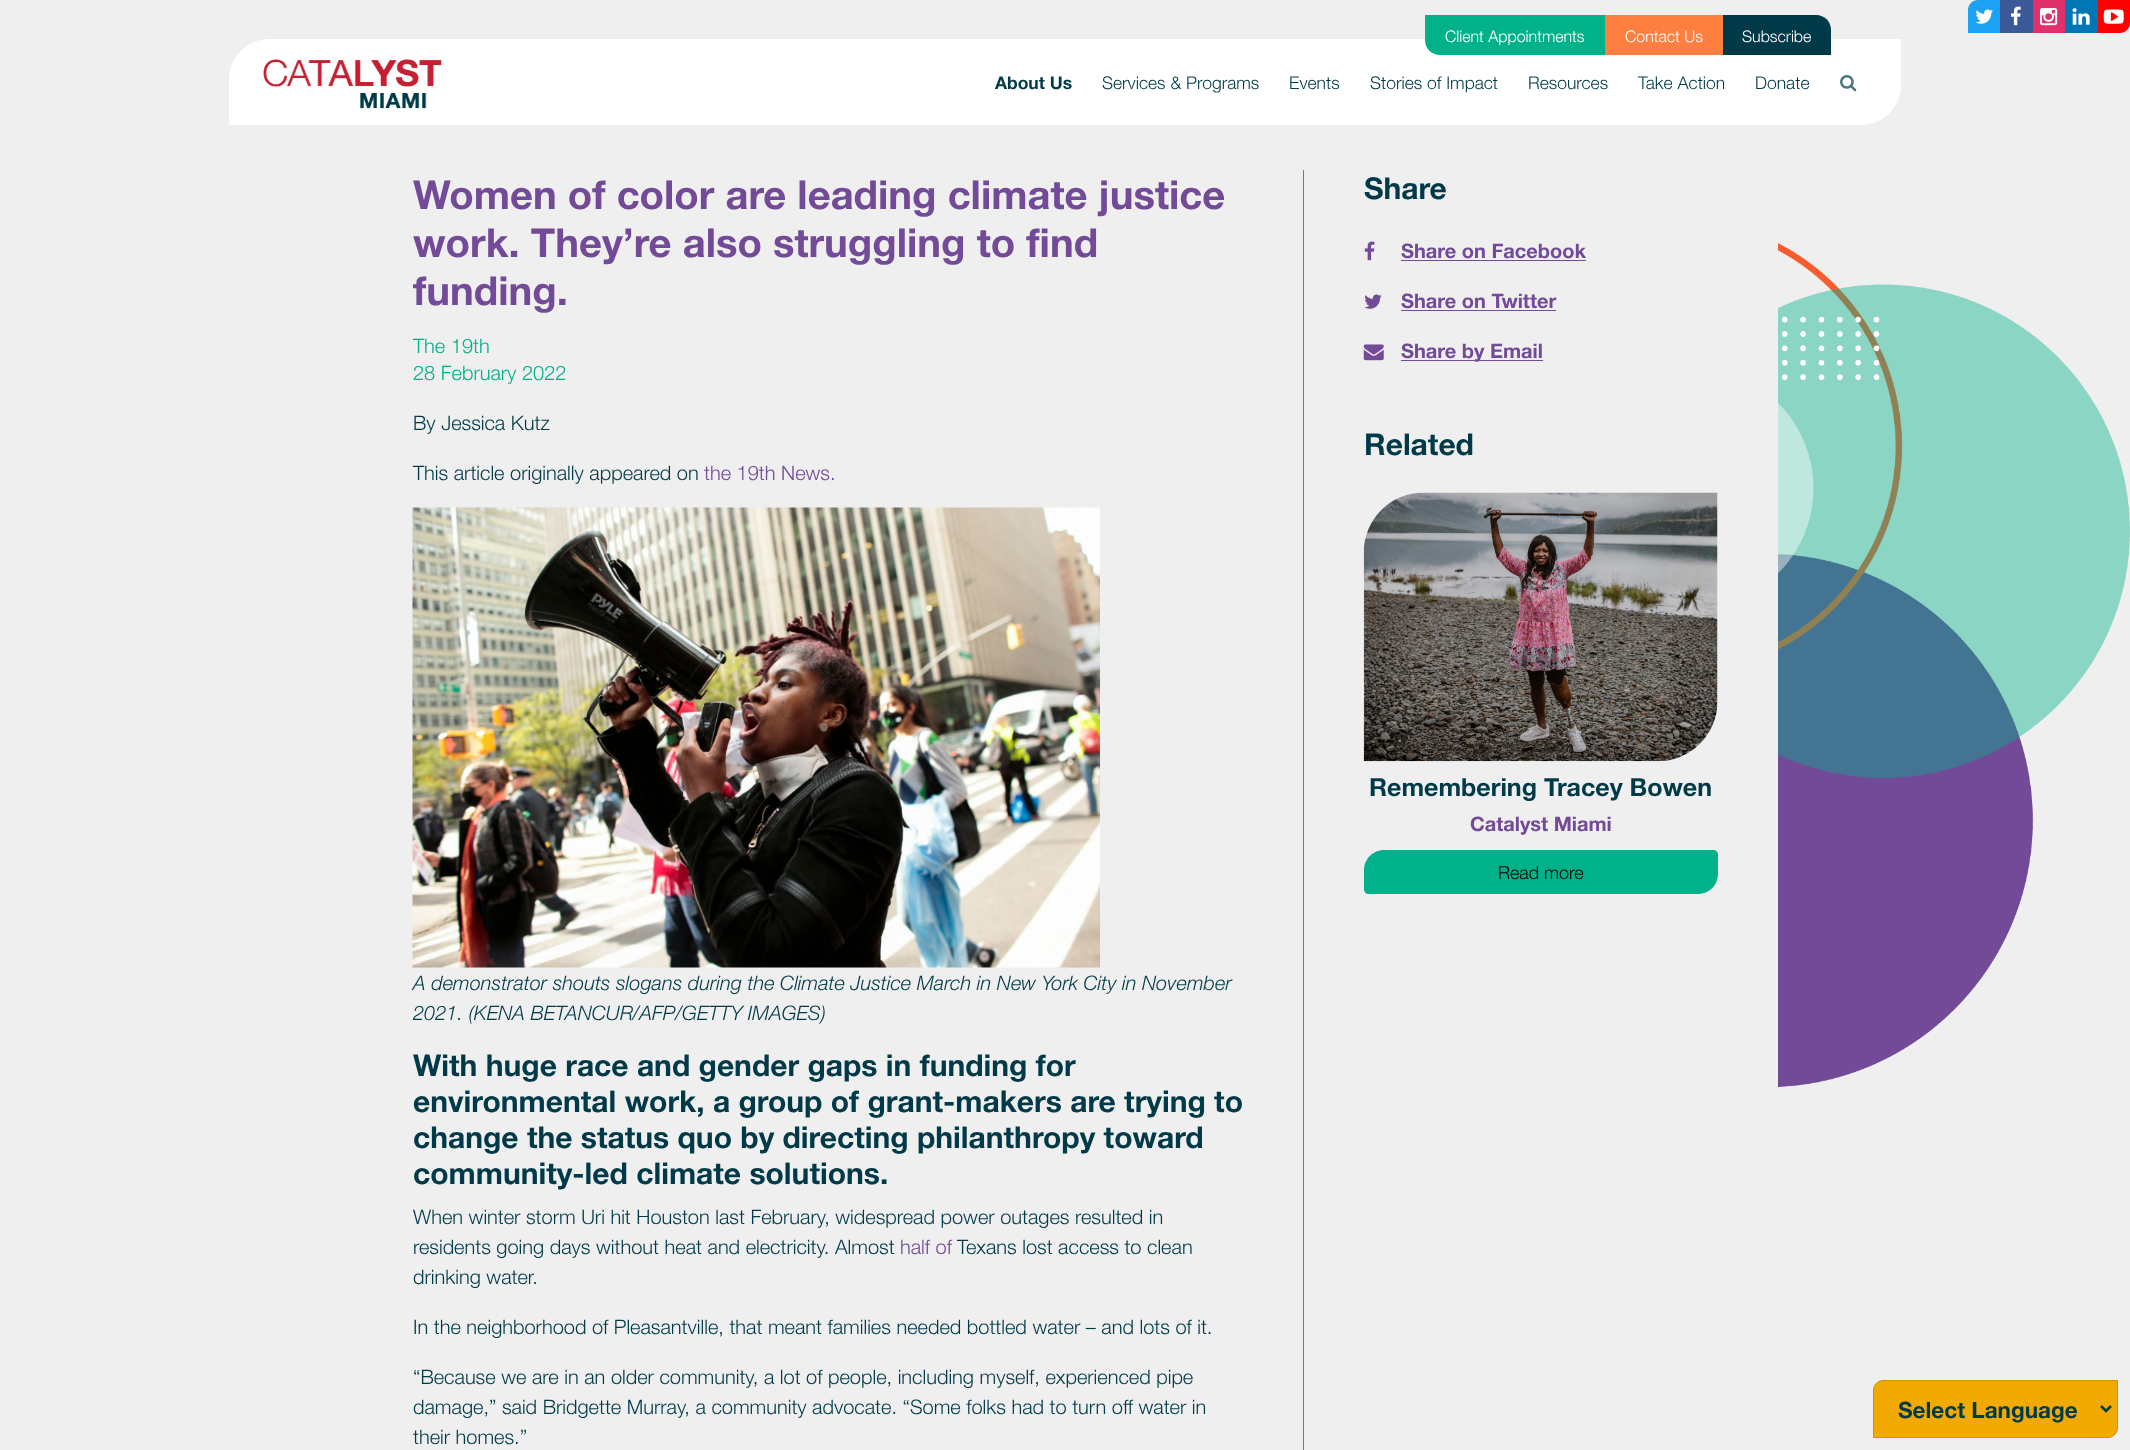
<svg xmlns="http://www.w3.org/2000/svg" xmlns:xlink="http://www.w3.org/1999/xlink" width="2130" height="1450" viewBox="0 0 2130 1450">
<style>
.cls-1{font:300 16px Helvetica Neue;fill:#ffffff}
.cls-2{font:bold 17.5px Helvetica Neue;fill:#003a49}
.cls-3{font:300 17.5px Helvetica Neue;fill:#003a49}
.cls-4{font:bold 40px Helvetica Neue;fill:#734a98}
.cls-5{font:300 20px Helvetica Neue;fill:#00b189}
.cls-6{font:300 20px Helvetica Neue;fill:#003a49}
.cls-7{font:300 20px Helvetica Neue;fill:#734a98}
.cls-8{font:italic 300 20px Helvetica Neue;fill:#003a49}
.cls-9{font:bold 30px Helvetica Neue;fill:#003a49}
.cls-10{font:bold 20px Helvetica Neue;fill:#734a98}
.cls-11{font:bold 25px Helvetica Neue;fill:#003a49}
.cls-12{font:300 18px Helvetica Neue;fill:#000000}
.cls-13{font:bold 22.5px Helvetica Neue;fill:#003a49}
</style>
<rect width="100%" height="100%" fill="#efefef"/>
<path fill="#1da1f2" d="M1978 0H2000V33H1968V10C1968 4.5 1972.5 0 1978 0Z"/>
<image xlink:href="image0.png" x="1975" y="9" width="18" height="15"/>
<rect fill="#3b5998" x="2000" y="0" width="33" height="33"/>
<image xlink:href="image1.png" x="2011" y="6" width="10" height="20"/>
<rect fill="#e1306c" x="2033" y="0" width="32" height="33"/>
<image xlink:href="image2.png" x="2040" y="8" width="18" height="18"/>
<rect fill="#0077b5" x="2065" y="0" width="33" height="33"/>
<image xlink:href="image3.png" x="2072" y="8" width="18" height="17"/>
<path fill="#ff0000" d="M2098 0H2130V23C2130 28.5 2125.5 33 2120 33H2098Z"/>
<image xlink:href="image4.png" x="2103" y="9" width="21" height="15"/>
<path fill="#ffffff" d="M269 39H1901V85C1901 107 1883 125 1861 125H229V79C229 57 247 39 269 39Z"/>
<path fill="#00b189" d="M1425 15H1605V55H1440C1431.5 55 1425 48.5 1425 40Z"/>
<rect fill="#ff7f40" x="1605" y="15" width="118" height="40"/>
<path fill="#003a49" d="M1723 15H1816C1824.5 15 1831 21.5 1831 30V55H1723Z"/>
<image xlink:href="image5.png" x="263" y="59" width="179" height="50"/>
<image xlink:href="image6.png" x="1840" y="75" width="17" height="17"/>
<image xlink:href="image7.png" x="412" y="507" width="688" height="461"/>
<rect fill="#00b189" x="1303" y="170" width="1" height="1280"/>
<image xlink:href="image8.png" x="1364" y="241" width="11" height="20"/>
<rect fill="#734a98" x="1401" y="260" width="185" height="1"/>
<image xlink:href="image9.png" x="1364" y="294" width="18" height="15"/>
<rect fill="#734a98" x="1401" y="310" width="155" height="1"/>
<image xlink:href="image10.png" x="1363" y="344" width="21" height="17"/>
<rect fill="#734a98" x="1401" y="360" width="142" height="1"/>
<image xlink:href="image11.png" x="1363" y="492" width="355" height="270"/>
<path fill="#00b189" d="M1384 850H1713C1716 850 1718 852 1718 855V874C1718 885 1709 894 1698 894H1369C1366 894 1364 892 1364 889V870C1364 859 1373 850 1384 850Z"/>
<image xlink:href="image12.png" x="1778" y="243" width="352" height="844"/>
<path fill="#f2a900" stroke="#d29405" d="M1883 1380.5H2117.5V1428C2117.5 1433 2113 1437.5 2108 1437.5H1873.5V1390C1873.5 1385 1878 1380.5 1883 1380.5Z"/>
<path fill="none" stroke="#003a4a" stroke-width="2.5" d="M2101 1406L2106 1411L2111 1406"/>
<text class="cls-1" x="1445" y="42">Client Appointments</text>
<text class="cls-1" x="1625" y="42">Contact Us</text>
<text class="cls-1" x="1742" y="42">Subscribe</text>
<text class="cls-2" x="995" y="89">About Us</text>
<text class="cls-3" x="1102" y="89">Services &amp; Programs</text>
<text class="cls-3" x="1289" y="89">Events</text>
<text class="cls-3" x="1370" y="89">Stories of Impact</text>
<text class="cls-3" x="1528" y="89">Resources</text>
<text class="cls-3" x="1638" y="89">Take Action</text>
<text class="cls-3" x="1755" y="89">Donate</text>
<text class="cls-4"><tspan x="413" y="209">Women of color are leading climate justice</tspan><tspan x="413" y="257">work. They’re also struggling to find</tspan><tspan x="413" y="305">funding.</tspan></text>
<text class="cls-5"><tspan x="413" y="353">The 19th</tspan><tspan x="413" y="380">28 February 2022</tspan></text>
<text class="cls-6" x="413" y="430">By Jessica Kutz</text>
<text class="cls-6" x="413" y="480">This article originally appeared on</text>
<text class="cls-7" x="704" y="480">the 19th News.</text>
<text class="cls-8"><tspan x="413" y="990">A demonstrator shouts slogans during the Climate Justice March in New York City in November</tspan><tspan x="413" y="1020">2021. (KENA BETANCUR/AFP/GETTY IMAGES)</tspan></text>
<text class="cls-9"><tspan x="413" y="1076">With huge race and gender gaps in funding for</tspan><tspan x="413" y="1112">environmental work, a group of grant-makers are trying to</tspan><tspan x="413" y="1148">change the status quo by directing philanthropy toward</tspan><tspan x="413" y="1184">community-led climate solutions.</tspan></text>
<text class="cls-6"><tspan x="413" y="1224">When winter storm Uri hit Houston last February, widespread power outages resulted in</tspan><tspan x="413" y="1254">residents going days without heat and electricity. Almost</tspan></text>
<text class="cls-7" x="900" y="1254">half of</text>
<text class="cls-6" x="957" y="1254">Texans lost access to clean</text>
<text class="cls-6" x="413" y="1284">drinking water.</text>
<text class="cls-6" x="413" y="1334">In the neighborhood of Pleasantville, that meant families needed bottled water – and lots of it.</text>
<text class="cls-6"><tspan x="413" y="1384">“Because we are in an older community, a lot of people, including myself, experienced pipe</tspan><tspan x="413" y="1414">damage,” said Bridgette Murray, a community advocate. “Some folks had to turn off water in</tspan><tspan x="413" y="1444">their homes.”</tspan></text>
<text class="cls-9" x="1364" y="199">Share</text>
<text class="cls-10" x="1401" y="258">Share on Facebook</text>
<text class="cls-10" x="1401" y="308">Share on Twitter</text>
<text class="cls-10" x="1401" y="358">Share by Email</text>
<text class="cls-9" x="1364" y="455">Related</text>
<text class="cls-11" x="1369" y="796">Remembering Tracey Bowen</text>
<text class="cls-10" x="1470" y="831">Catalyst Miami</text>
<text class="cls-12" x="1498" y="879">Read more</text>
<text class="cls-13" x="1898" y="1418">Select Language</text>
</svg>
